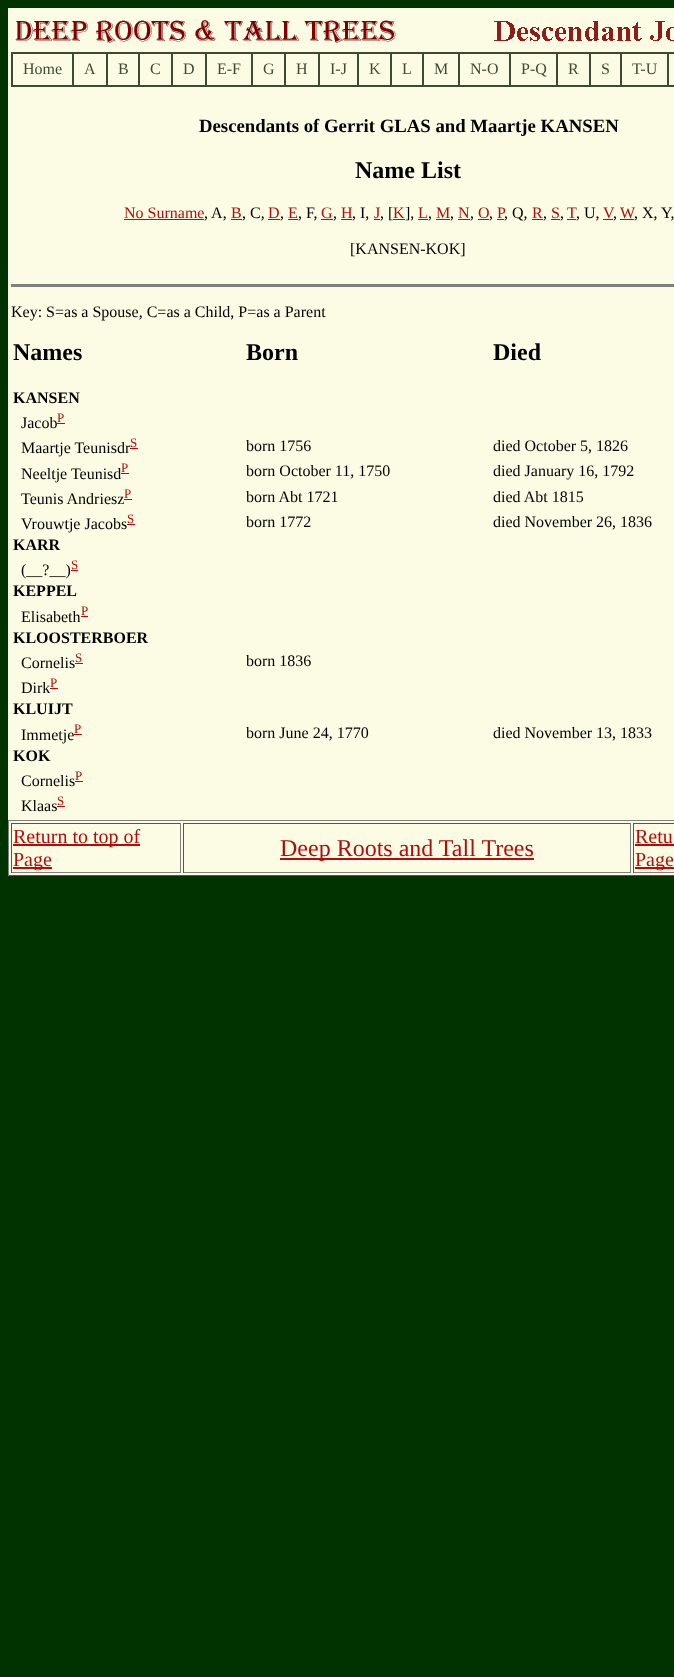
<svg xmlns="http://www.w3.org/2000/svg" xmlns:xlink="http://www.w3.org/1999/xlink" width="674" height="1677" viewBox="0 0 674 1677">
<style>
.cls-1{font:16px Liberation Serif;fill:#3f4a34}
.cls-2{font:bold 18.75px Liberation Serif;fill:#000000}
.cls-3{font:bold 24px Liberation Serif;fill:#000000}
.cls-4{font:16px Liberation Serif;fill:#b00e0e}
.cls-5{font:16px Liberation Serif;fill:#000000}
.cls-6{font:bold 16px Liberation Serif;fill:#000000}
.cls-7{font:13px Liberation Serif;fill:#b00e0e}
.cls-8{font:20px Liberation Serif;fill:#b00e0e}
.cls-9{font:24px Liberation Serif;fill:#b00e0e}
</style>
<rect width="100%" height="100%" fill="#003300"/>
<rect fill="#fbfce3" x="8" y="8" width="666" height="812"/>
<image xlink:href="image0.png" x="15" y="20" width="659" height="23"/>
<rect fill="none" stroke="#3f4a34" x="11.5" y="52.5" width="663" height="34"/>
<rect fill="none" stroke="#3f4a34" x="12.5" y="53.5" width="60" height="32"/>
<rect fill="none" stroke="#3f4a34" x="73.5" y="53.5" width="33" height="32"/>
<rect fill="none" stroke="#3f4a34" x="107.5" y="53.5" width="31" height="32"/>
<rect fill="none" stroke="#3f4a34" x="139.5" y="53.5" width="32" height="32"/>
<rect fill="none" stroke="#3f4a34" x="172.5" y="53.5" width="33" height="32"/>
<rect fill="none" stroke="#3f4a34" x="206.5" y="53.5" width="45" height="32"/>
<rect fill="none" stroke="#3f4a34" x="252.5" y="53.5" width="32" height="32"/>
<rect fill="none" stroke="#3f4a34" x="285.5" y="53.5" width="33" height="32"/>
<rect fill="none" stroke="#3f4a34" x="319.5" y="53.5" width="38" height="32"/>
<rect fill="none" stroke="#3f4a34" x="358.5" y="53.5" width="32" height="32"/>
<rect fill="none" stroke="#3f4a34" x="391.5" y="53.5" width="31" height="32"/>
<rect fill="none" stroke="#3f4a34" x="423.5" y="53.5" width="35" height="32"/>
<rect fill="none" stroke="#3f4a34" x="459.5" y="53.5" width="50" height="32"/>
<rect fill="none" stroke="#3f4a34" x="510.5" y="53.5" width="46" height="32"/>
<rect fill="none" stroke="#3f4a34" x="557.5" y="53.5" width="32" height="32"/>
<rect fill="none" stroke="#3f4a34" x="590.5" y="53.5" width="30" height="32"/>
<rect fill="none" stroke="#3f4a34" x="621.5" y="53.5" width="46" height="32"/>
<rect fill="none" stroke="#3f4a34" x="668.5" y="53.5" width="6" height="32"/>
<rect fill="#b00e0e" x="124" y="219" width="80" height="1"/>
<rect fill="#b00e0e" x="231" y="219" width="11" height="1"/>
<rect fill="#b00e0e" x="268" y="219" width="12" height="1"/>
<rect fill="#b00e0e" x="288" y="219" width="10" height="1"/>
<rect fill="#b00e0e" x="321" y="219" width="12" height="1"/>
<rect fill="#b00e0e" x="341" y="219" width="11" height="1"/>
<rect fill="#b00e0e" x="374" y="219" width="6" height="1"/>
<rect fill="#b00e0e" x="393" y="219" width="12" height="1"/>
<rect fill="#b00e0e" x="418" y="219" width="10" height="1"/>
<rect fill="#b00e0e" x="436" y="219" width="14" height="1"/>
<rect fill="#b00e0e" x="458" y="219" width="12" height="1"/>
<rect fill="#b00e0e" x="478" y="219" width="11" height="1"/>
<rect fill="#b00e0e" x="497" y="219" width="7" height="1"/>
<rect fill="#b00e0e" x="532" y="219" width="11" height="1"/>
<rect fill="#b00e0e" x="551" y="219" width="9" height="1"/>
<rect fill="#b00e0e" x="567" y="219" width="9" height="1"/>
<rect fill="#b00e0e" x="603" y="219" width="10" height="1"/>
<rect fill="#b00e0e" x="620" y="219" width="14" height="1"/>
<rect fill="#808080" x="11" y="284" width="663" height="3"/>
<rect fill="#b00e0e" x="57" y="423" width="8" height="1"/>
<rect fill="#b00e0e" x="124" y="499" width="8" height="1"/>
<rect fill="#b00e0e" x="127" y="524" width="8" height="1"/>
<rect fill="#b00e0e" x="71" y="570" width="7" height="1"/>
<rect fill="#b00e0e" x="81" y="616" width="7" height="1"/>
<rect fill="#b00e0e" x="75" y="663" width="8" height="1"/>
<rect fill="#b00e0e" x="74" y="734" width="8" height="1"/>
<rect fill="#b00e0e" x="75" y="781" width="8" height="1"/>
<rect fill="#b00e0e" x="57" y="806" width="8" height="1"/>
<rect fill="#fbfce3" x="9" y="821" width="665" height="54"/>
<rect fill="#808080" x="8" y="820" width="666" height="1"/>
<rect fill="#555555" x="8" y="875" width="666" height="1"/>
<rect fill="#808080" x="8" y="820" width="1" height="56"/>
<rect fill="#555555" x="11" y="823" width="170" height="1"/>
<rect fill="#808080" x="180" y="823" width="1" height="50"/>
<rect fill="#808080" x="11" y="872" width="170" height="1"/>
<rect fill="#555555" x="11" y="823" width="1" height="50"/>
<rect fill="#b00e0e" x="13" y="844" width="127" height="2"/>
<rect fill="#b00e0e" x="13" y="867" width="39" height="2"/>
<rect fill="#555555" x="183" y="823" width="448" height="1"/>
<rect fill="#808080" x="630" y="823" width="1" height="50"/>
<rect fill="#808080" x="183" y="872" width="448" height="1"/>
<rect fill="#555555" x="183" y="823" width="1" height="50"/>
<rect fill="#b00e0e" x="280" y="858" width="254" height="2"/>
<rect fill="#555555" x="633" y="823" width="41" height="1"/>
<rect fill="#808080" x="633" y="872" width="41" height="1"/>
<rect fill="#555555" x="633" y="823" width="1" height="50"/>
<rect fill="#b00e0e" x="635" y="844" width="39" height="2"/>
<rect fill="#b00e0e" x="635" y="867" width="39" height="2"/>
<text class="cls-1" x="23" y="74">Home</text>
<text class="cls-1" x="84" y="74">A</text>
<text class="cls-1" x="118" y="74">B</text>
<text class="cls-1" x="150" y="74">C</text>
<text class="cls-1" x="183" y="74">D</text>
<text class="cls-1" x="217" y="74">E-F</text>
<text class="cls-1" x="263" y="74">G</text>
<text class="cls-1" x="296" y="74">H</text>
<text class="cls-1" x="330" y="74">I-J</text>
<text class="cls-1" x="369" y="74">K</text>
<text class="cls-1" x="402" y="74">L</text>
<text class="cls-1" x="434" y="74">M</text>
<text class="cls-1" x="470" y="74">N-O</text>
<text class="cls-1" x="521" y="74">P-Q</text>
<text class="cls-1" x="568" y="74">R</text>
<text class="cls-1" x="601" y="74">S</text>
<text class="cls-1" x="632" y="74">T-U</text>
<text class="cls-2" x="199" y="132">Descendants of Gerrit GLAS and Maartje KANSEN</text>
<text class="cls-3" x="355" y="178">Name List</text>
<text class="cls-4" x="124" y="218">No Surname</text>
<text class="cls-5" x="204" y="218">, A,</text>
<text class="cls-4" x="231" y="218">B</text>
<text class="cls-5" x="242" y="218">, C,</text>
<text class="cls-4" x="268" y="218">D</text>
<text class="cls-5" x="280" y="218">,</text>
<text class="cls-4" x="288" y="218">E</text>
<text class="cls-5" x="298" y="218">, F,</text>
<text class="cls-4" x="321" y="218">G</text>
<text class="cls-5" x="333" y="218">,</text>
<text class="cls-4" x="341" y="218">H</text>
<text class="cls-5" x="352" y="218">, I,</text>
<text class="cls-4" x="374" y="218">J</text>
<text class="cls-5" x="380" y="218">, [</text>
<text class="cls-4" x="393" y="218">K</text>
<text class="cls-5" x="405" y="218">],</text>
<text class="cls-4" x="418" y="218">L</text>
<text class="cls-5" x="428" y="218">,</text>
<text class="cls-4" x="436" y="218">M</text>
<text class="cls-5" x="450" y="218">,</text>
<text class="cls-4" x="458" y="218">N</text>
<text class="cls-5" x="470" y="218">,</text>
<text class="cls-4" x="478" y="218">O</text>
<text class="cls-5" x="489" y="218">,</text>
<text class="cls-4" x="497" y="218">P</text>
<text class="cls-5" x="504" y="218">, Q,</text>
<text class="cls-4" x="532" y="218">R</text>
<text class="cls-5" x="543" y="218">,</text>
<text class="cls-4" x="551" y="218">S</text>
<text class="cls-5" x="560" y="218">,</text>
<text class="cls-4" x="567" y="218">T</text>
<text class="cls-5" x="576" y="218">, U,</text>
<text class="cls-4" x="603" y="218">V</text>
<text class="cls-4" x="620" y="218">W</text>
<text class="cls-5" x="634" y="218">, X, Y,</text>
<text class="cls-5" x="613" y="218">,</text>
<text class="cls-5" x="350" y="254">[KANSEN-KOK]</text>
<text class="cls-5" x="11" y="317">Key: S=as a Spouse, C=as a Child, P=as a Parent</text>
<text class="cls-3" x="13" y="360">Names</text>
<text class="cls-3" x="246" y="360">Born</text>
<text class="cls-3" x="493" y="360">Died</text>
<text class="cls-6" x="13" y="403">KANSEN</text>
<text class="cls-5" x="21" y="428">Jacob</text>
<text class="cls-7" x="57" y="422">P</text>
<text class="cls-5" x="21" y="453">Maartje Teunisdr</text>
<text class="cls-7" x="130" y="447">S</text>
<rect fill="#b00e0e" x="130" y="448" width="8" height="1"/>
<text class="cls-5" x="246" y="451">born 1756</text>
<text class="cls-5" x="493" y="451">died October 5, 1826</text>
<text class="cls-5" x="21" y="479">Neeltje Teunisd</text>
<text class="cls-7" x="121" y="472">P</text>
<rect fill="#b00e0e" x="121" y="473" width="8" height="1"/>
<text class="cls-5" x="246" y="476">born October 11, 1750</text>
<text class="cls-5" x="493" y="476">died January 16, 1792</text>
<text class="cls-5" x="21" y="504">Teunis Andriesz</text>
<text class="cls-7" x="124" y="498">P</text>
<text class="cls-5" x="246" y="502">born Abt 1721</text>
<text class="cls-5" x="493" y="502">died Abt 1815</text>
<text class="cls-5" x="21" y="529">Vrouwtje Jacobs</text>
<text class="cls-7" x="127" y="523">S</text>
<text class="cls-5" x="246" y="527">born 1772</text>
<text class="cls-5" x="493" y="527">died November 26, 1836</text>
<text class="cls-6" x="13" y="550">KARR</text>
<text class="cls-5" x="21" y="575">(__?__)</text>
<text class="cls-7" x="71" y="569">S</text>
<text class="cls-6" x="13" y="596">KEPPEL</text>
<text class="cls-5" x="21" y="622">Elisabeth</text>
<text class="cls-7" x="81" y="615">P</text>
<text class="cls-6" x="13" y="643">KLOOSTERBOER</text>
<text class="cls-5" x="21" y="668">Cornelis</text>
<text class="cls-7" x="75" y="662">S</text>
<text class="cls-5" x="246" y="666">born 1836</text>
<text class="cls-5" x="21" y="693">Dirk</text>
<text class="cls-7" x="50" y="687">P</text>
<rect fill="#b00e0e" x="50" y="688" width="8" height="1"/>
<text class="cls-6" x="13" y="714">KLUIJT</text>
<text class="cls-5" x="21" y="740">Immetje</text>
<text class="cls-7" x="74" y="733">P</text>
<text class="cls-5" x="246" y="738">born June 24, 1770</text>
<text class="cls-5" x="493" y="738">died November 13, 1833</text>
<text class="cls-6" x="13" y="761">KOK</text>
<text class="cls-5" x="21" y="786">Cornelis</text>
<text class="cls-7" x="75" y="780">P</text>
<text class="cls-5" x="21" y="811">Klaas</text>
<text class="cls-7" x="57" y="805">S</text>
<text class="cls-8"><tspan x="13" y="843">Return to top of</tspan><tspan x="13" y="866">Page</tspan></text>
<text class="cls-9" x="280" y="856">Deep Roots and Tall Trees</text>
<text class="cls-8"><tspan x="635" y="843">Retu</tspan><tspan x="635" y="866">Page</tspan></text>
</svg>
